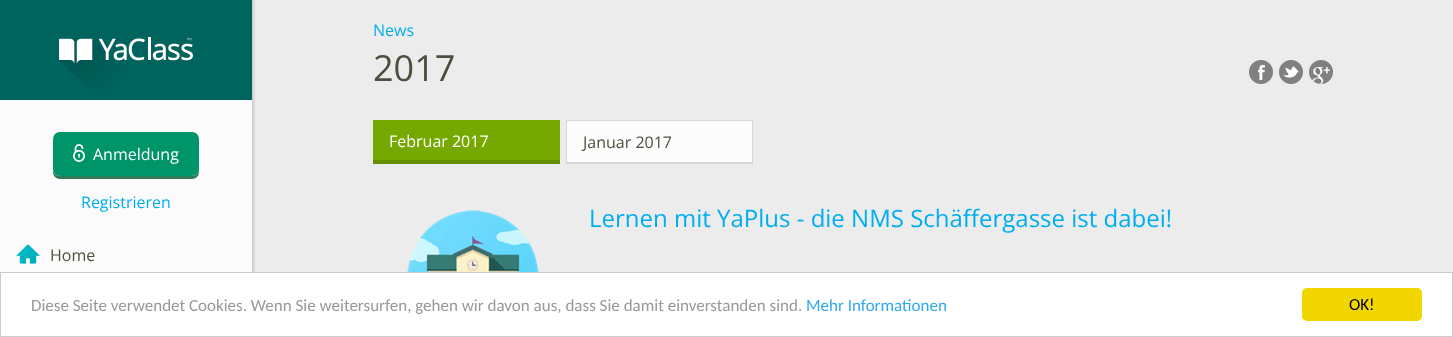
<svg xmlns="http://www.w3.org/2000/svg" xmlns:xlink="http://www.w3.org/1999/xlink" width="1453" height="337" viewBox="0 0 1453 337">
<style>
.cls-1{font:16px Open Sans;fill:#ffffff}
.cls-2{font:16px Open Sans;fill:#00aeef}
.cls-3{font:16px Open Sans;fill:#4e4e3f}
.cls-4{font:36px Open Sans;fill:#4e4e3f}
.cls-5{font:24px Open Sans;fill:#00aeef}
.cls-6{font:17px Carlito;fill:#999999}
.cls-7{font:17px Carlito;fill:#31a8f0}
.cls-8{font:17px Carlito;fill:#000000}
</style>
<rect width="100%" height="100%" fill="#ececec"/>
<rect fill="#dbdbdb" x="253" y="0" width="2" height="272"/>
<rect fill="#cccccc" x="252" y="0" width="1" height="272"/>
<rect fill="#fbfbfb" x="0" y="100" width="252" height="172"/>
<rect fill="#00645e" x="0" y="0" width="252" height="100"/>
<image xlink:href="image0.png" x="59" y="37" width="134" height="52"/>
<path fill="#317a58" d="M53 169V172C53 176 56 179 60 179H192C196 179 199 176 199 172V169C199 173 196 176 192 176H60C56 176 53 173 53 169Z"/>
<rect fill="#009469" x="53" y="132" width="146" height="44" rx="7"/>
<image xlink:href="image1.png" x="73" y="144" width="12" height="18"/>
<image xlink:href="image2.png" x="16" y="244" width="24" height="20"/>
<image xlink:href="image3.png" x="1249" y="60" width="24" height="24"/>
<image xlink:href="image4.png" x="1279" y="60" width="24" height="24"/>
<image xlink:href="image5.png" x="1309" y="60" width="24" height="24"/>
<rect fill="#76a900" x="373" y="120" width="187" height="40"/>
<rect fill="#649000" x="373" y="160" width="187" height="4"/>
<rect fill="#fcfcfc" x="567" y="121" width="185" height="41"/>
<rect fill="#d6d6d6" x="566" y="120" width="187" height="1"/>
<rect fill="#d6d6d6" x="752" y="120" width="1" height="44"/>
<rect fill="#d6d6d6" x="566" y="162" width="187" height="2"/>
<rect fill="#d6d6d6" x="566" y="120" width="1" height="44"/>
<image xlink:href="image6.png" x="407" y="210" width="132" height="62"/>
<rect fill="#ffffff" stroke="#cccccc" x="0.5" y="272.5" width="1452" height="64"/>
<rect fill="#f1d600" x="1302" y="288" width="120" height="33" rx="5"/>
<text class="cls-1" x="93" y="160">Anmeldung</text>
<text class="cls-2" x="81" y="208">Registrieren</text>
<text class="cls-3" x="50" y="261">Home</text>
<text class="cls-2" x="373" y="36">News</text>
<text class="cls-4" x="373" y="81">2017</text>
<text class="cls-1" x="389" y="147">Februar 2017</text>
<text class="cls-3" x="583" y="148">Januar 2017</text>
<text class="cls-5" x="589" y="227">Lernen mit YaPlus - die NMS Schäffergasse ist dabei!</text>
<text class="cls-6" x="31" y="311">Diese Seite verwendet Cookies. Wenn Sie weitersurfen, gehen wir davon aus, dass Sie damit einverstanden sind.</text>
<text class="cls-7" x="806" y="311">Mehr Informationen</text>
<text class="cls-8" x="1349" y="310">OK!</text>
</svg>
